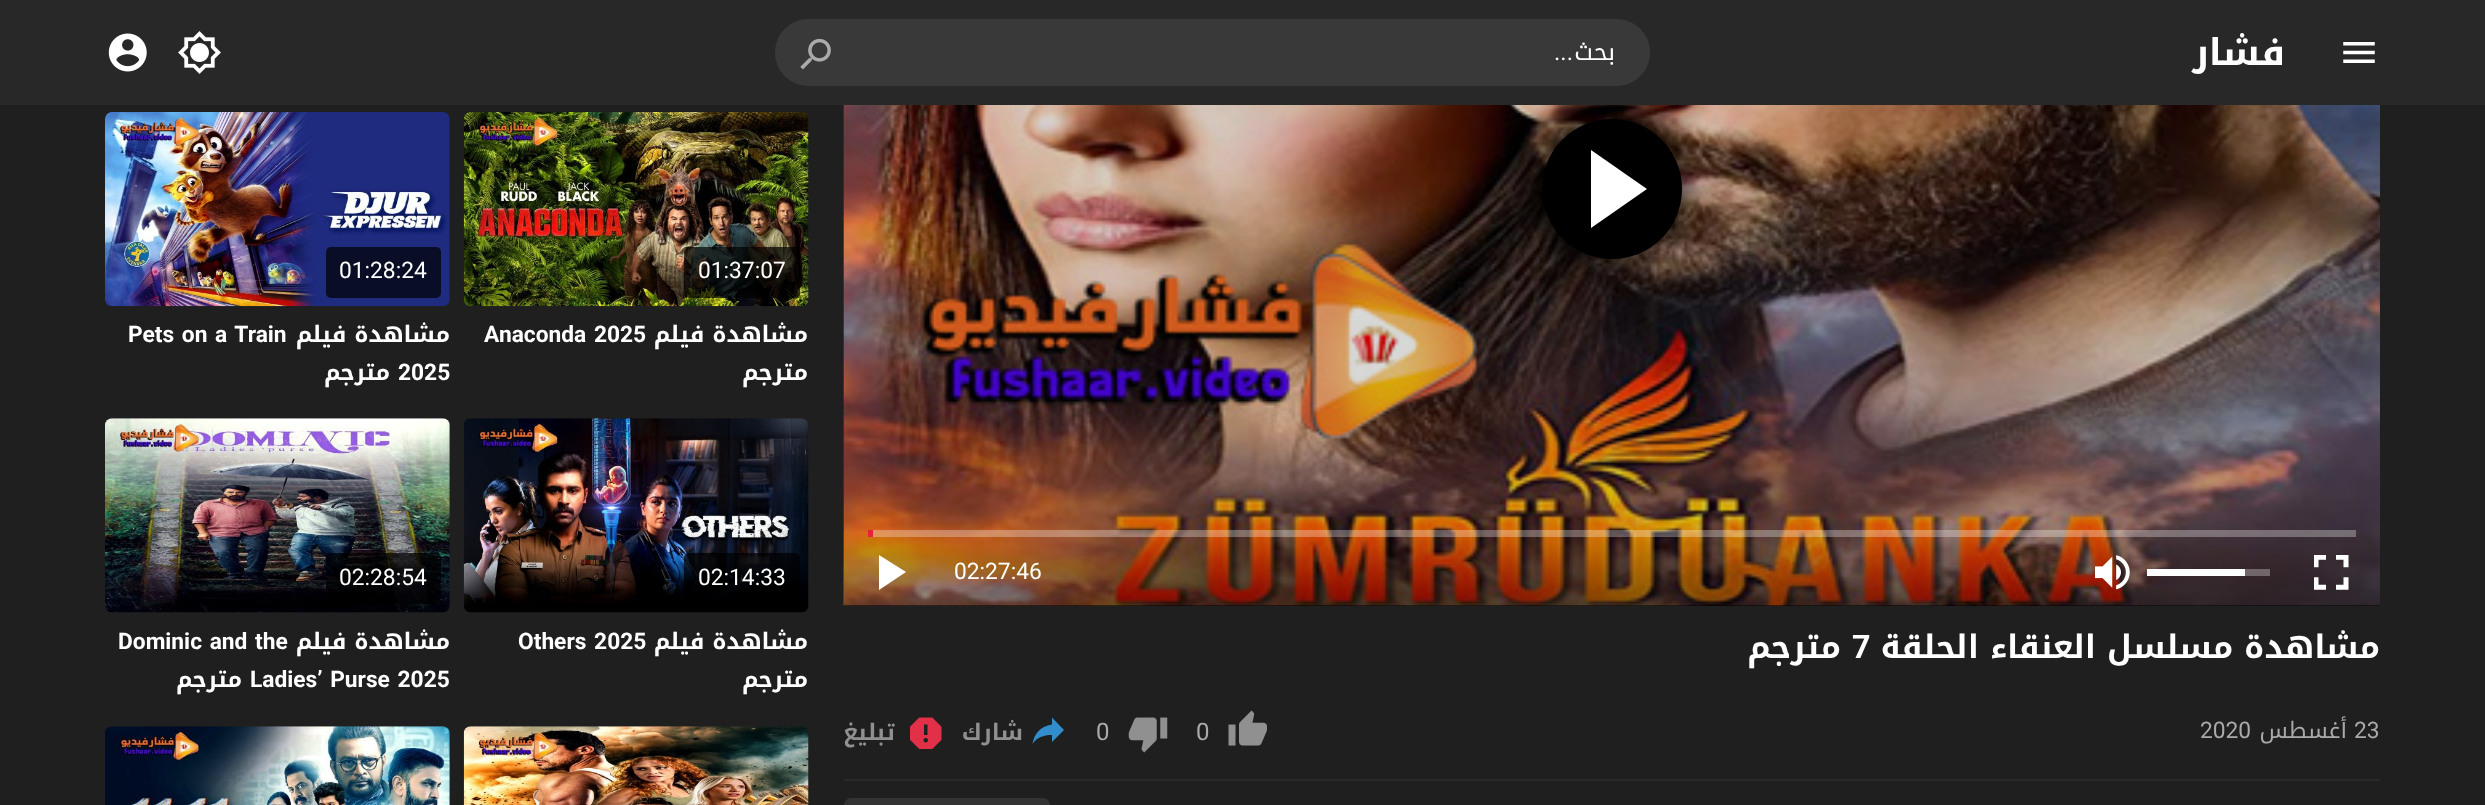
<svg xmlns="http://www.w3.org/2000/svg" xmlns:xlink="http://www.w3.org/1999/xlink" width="2485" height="805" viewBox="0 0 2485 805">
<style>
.cls-1{font:24px Roboto;direction:rtl;fill:#ffffff}
.cls-2{font:24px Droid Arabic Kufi;direction:rtl;fill:#ffffff}
.cls-3{font:bold 37px Droid Arabic Kufi;direction:rtl;fill:#ffffff}
.cls-4{font:22.75px Roboto;fill:#ffffff}
.cls-5{font:bold 22.75px Roboto;fill:#ffffff}
.cls-6{font:bold 22.75px Droid Arabic Kufi;direction:rtl;fill:#ffffff}
.cls-7{font:bold 32.25px Droid Arabic Kufi;direction:rtl;fill:#ffffff}
.cls-8{font:bold 32.25px Roboto;fill:#ffffff}
.cls-9{font:bold 22.75px Droid Arabic Kufi;direction:rtl;fill:#909090}
.cls-10{font:24px Roboto;fill:#aaaaaa}
.cls-11{font:22.75px Roboto;fill:#aaaaaa}
.cls-12{font:22.75px Droid Arabic Kufi;direction:rtl;fill:#aaaaaa}
</style>
<defs>
<linearGradient id="g1" gradientUnits="userSpaceOnUse" x1="1612" y1="530" x2="1612" y2="607"><stop offset="0" stop-color="#000000" stop-opacity="0"/><stop offset="1" stop-color="#000000" stop-opacity="0.4"/></linearGradient>
</defs>
<rect width="100%" height="100%" fill="#1f1f1f"/>
<rect fill="#000000" x="844" y="605" width="1536" height="1"/>
<image xlink:href="image10.png" x="843" y="105" width="1537" height="501"/>
<rect fill="#000000" filter="blur(17.5px)" x="1542" y="119" width="140" height="140" rx="70"/>
<rect fill="#282828" x="0" y="0" width="2485" height="105"/>
<image xlink:href="image0.png" x="108" y="33" width="39" height="39"/>
<image xlink:href="image1.png" x="178" y="31" width="43" height="43"/>
<path fill="#393939" d="M808.5 19H863V86H808.5C790 86 775 71 775 52.5C775 34 790 19 808.5 19Z"/>
<image xlink:href="image2.png" x="800" y="38" width="31" height="32"/>
<path fill="#393939" d="M863 19H1616.5C1635 19 1650 34 1650 52.5C1650 71 1635 86 1616.5 86H863Z"/>
<image xlink:href="image3.png" x="2343" y="42" width="32" height="21"/>
<image xlink:href="image4.png" x="105" y="112" width="345" height="195"/>
<rect fill="#090d26" x="326" y="247" width="115" height="51" rx="5"/>
<image xlink:href="image5.png" x="463" y="112" width="346" height="195"/>
<rect fill="#000000" fill-opacity="0.7" x="684" y="247" width="116" height="51" rx="5"/>
<image xlink:href="image6.png" x="105" y="418" width="345" height="195"/>
<rect fill="#000000" fill-opacity="0.7" x="326" y="553" width="115" height="51" rx="5"/>
<image xlink:href="image7.png" x="463" y="418" width="346" height="195"/>
<rect fill="#000000" fill-opacity="0.7" x="684" y="553" width="116" height="51" rx="5"/>
<image xlink:href="image8.png" x="105" y="726" width="345" height="79"/>
<image xlink:href="image9.png" x="463" y="726" width="346" height="79"/>
<circle fill="#000000" cx="1612" cy="189" r="70"/>
<path fill="#ffffff" d="M1591 228V150L1647 189Z"/>
<rect fill="url(#g1)" x="844" y="534" width="1536" height="72"/>
<rect fill="#ffffff" fill-opacity="0.3" x="868" y="530" width="1488" height="7"/>
<rect fill="#e82239" x="868" y="530" width="5" height="7"/>
<path fill="#ffffff" d="M879 555V590L906 572Z"/>
<image xlink:href="image11.png" x="2095" y="555" width="35" height="35"/>
<rect fill="#ffffff" fill-opacity="0.3" x="2245" y="569" width="25" height="7"/>
<rect fill="#ffffff" x="2147" y="569" width="98" height="7"/>
<image xlink:href="image12.png" x="2314" y="555" width="35" height="35"/>
<rect fill="#292929" x="844" y="779" width="1536" height="2"/>
<image xlink:href="image13.png" x="910" y="717" width="32" height="32"/>
<path fill="#318dcb" d="M1064 730L1052 717.5V724.5C1039.5 726 1034 735 1032.5 744C1037 737.5 1043 735 1052 735V742Z"/>
<image xlink:href="image14.png" x="1128" y="717" width="40" height="36"/>
<image xlink:href="image15.png" x="1228" y="710" width="39" height="36"/>
<rect fill="#333333" stroke="#333333" stroke-width="2" x="845" y="799" width="204" height="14" rx="6"/>
<text class="cls-1" x="1573" y="60">...</text>
<text class="cls-2" x="1615" y="60">بحث</text>
<text class="cls-3" x="2285" y="65">فشار</text>
<text class="cls-4" x="339" y="278">01:28:24</text>
<text class="cls-5" x="128" y="342" word-spacing="2">Pets on a Train</text>
<text class="cls-6" x="450" y="342">مشاهدة فيلم</text>
<text class="cls-6" x="390" y="380">مترجم</text>
<text class="cls-5" x="398" y="380">2025</text>
<text class="cls-4" x="698" y="278">01:37:07</text>
<text class="cls-5" x="484" y="342" word-spacing="2">Anaconda 2025</text>
<text class="cls-6"><tspan x="808" y="342">مشاهدة فيلم</tspan><tspan x="808" y="380">مترجم</tspan></text>
<text class="cls-4" x="339" y="585">02:28:54</text>
<text class="cls-5" x="118" y="649" word-spacing="2">Dominic and the</text>
<text class="cls-6" x="450" y="649">مشاهدة فيلم</text>
<text class="cls-6" x="242" y="687">مترجم</text>
<text class="cls-5" x="250" y="687" word-spacing="2">Ladies’ Purse 2025</text>
<text class="cls-4" x="698" y="585">02:14:33</text>
<text class="cls-5" x="518" y="649" word-spacing="2">Others 2025</text>
<text class="cls-6"><tspan x="808" y="649">مشاهدة فيلم</tspan><tspan x="808" y="687">مترجم</tspan></text>
<text class="cls-4" x="954" y="579">02:27:46</text>
<text class="cls-7" x="1841" y="658">مترجم</text>
<text class="cls-8" x="1852" y="658">7</text>
<text class="cls-7" x="2380" y="658">مشاهدة مسلسل العنقاء الحلقة</text>
<text class="cls-9" x="895" y="740">تبليغ</text>
<text class="cls-9" x="1023" y="740">شارك</text>
<text class="cls-10" x="1096" y="740">0</text>
<text class="cls-10" x="1196" y="740">0</text>
<text class="cls-11" x="2200" y="738">2020</text>
<text class="cls-12" x="2347" y="738">أغسطس</text>
<text class="cls-11" x="2354" y="738">23</text>
</svg>
